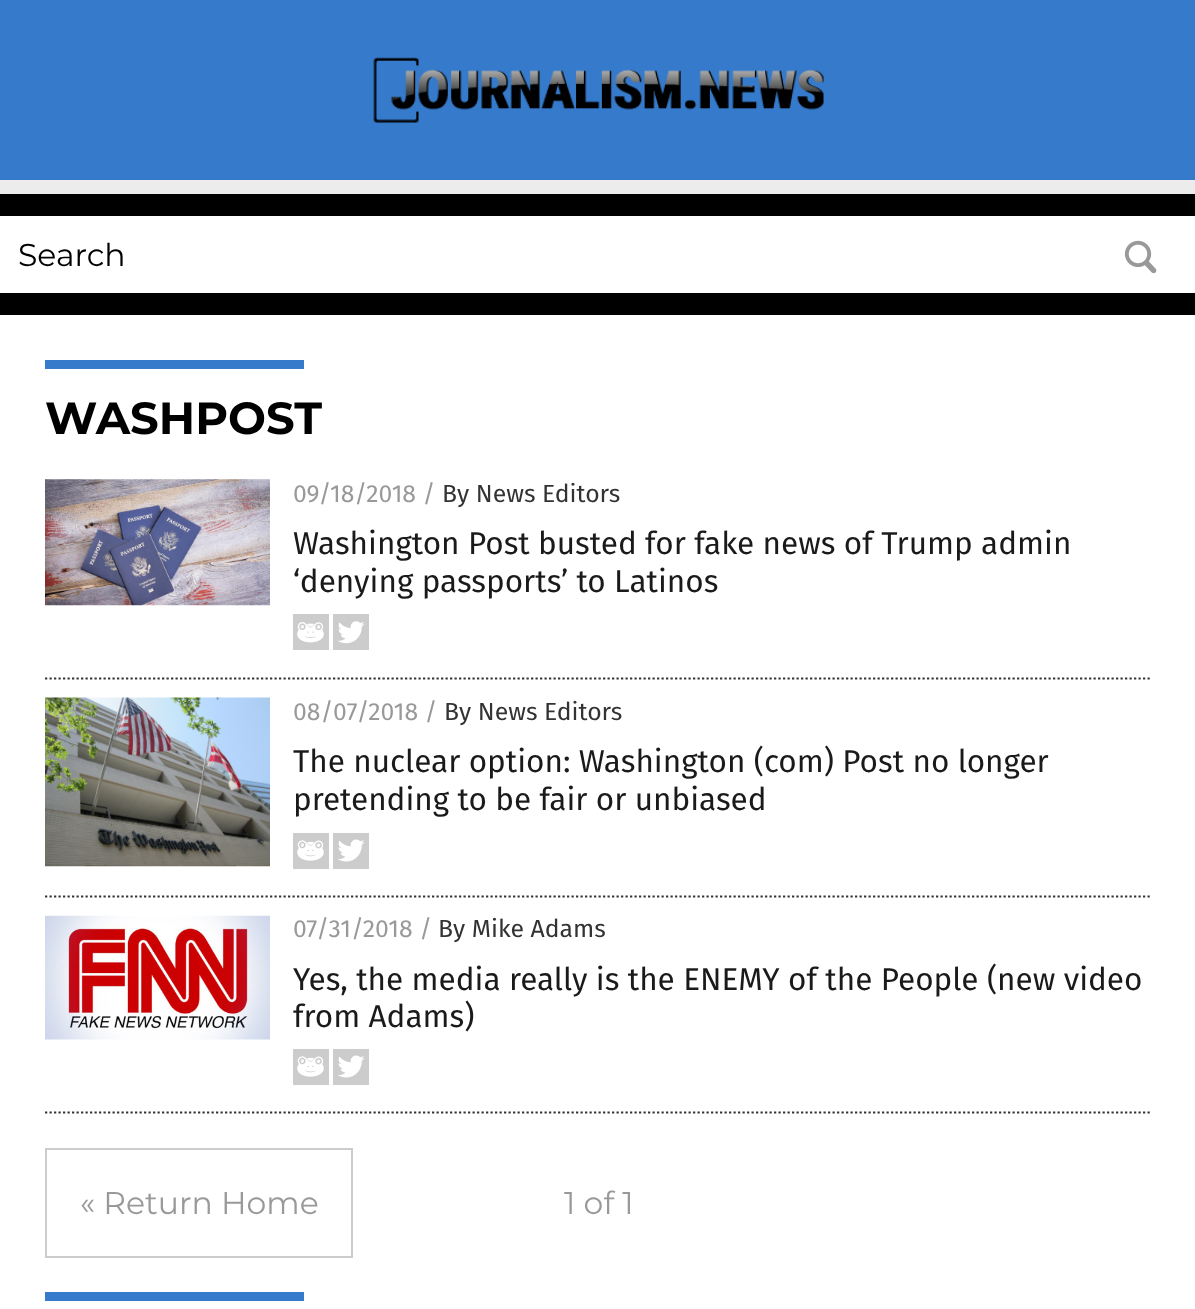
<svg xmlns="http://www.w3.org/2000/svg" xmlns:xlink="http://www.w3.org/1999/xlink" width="1195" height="1309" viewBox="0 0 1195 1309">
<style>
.cls-1{font:31.5px Montserrat;fill:#000000}
.cls-2{font:bold 45px Montserrat;fill:#000000}
.cls-3{font:24.75px Fira Sans;fill:#999999}
.cls-4{font:24.75px Fira Sans;fill:#333333}
.cls-5{font:31.5px Fira Sans;fill:#1a1a1a}
.cls-6{font:31.5px Montserrat;fill:#999999}
</style>
<rect width="100%" height="100%" fill="#000000"/>
<rect fill="#367bcb" x="0" y="0" width="1195" height="180"/>
<image xlink:href="image0.png" x="373" y="57" width="451" height="66"/>
<rect fill="#ececec" x="0" y="180" width="1195" height="14"/>
<rect fill="#ffffff" x="0" y="216" width="1195" height="77"/>
<image xlink:href="image1.png" x="1124" y="240" width="33" height="34"/>
<rect fill="#ffffff" x="0" y="315" width="1195" height="994"/>
<rect fill="#367bcb" x="45" y="360" width="259" height="9"/>
<path fill="none" stroke="#343434" stroke-width="2.2" stroke-dasharray="2.25 2.25" d="M45 678.5H1152"/>
<image xlink:href="image2.png" x="45" y="479" width="225" height="127"/>
<image xlink:href="image3.png" x="293" y="614" width="36" height="36"/>
<image xlink:href="image4.png" x="333" y="614" width="36" height="36"/>
<path fill="none" stroke="#343434" stroke-width="2.2" stroke-dasharray="2.25 2.25" d="M45 896.5H1152"/>
<image xlink:href="image5.png" x="45" y="697" width="225" height="170"/>
<image xlink:href="image6.png" x="293" y="833" width="36" height="36"/>
<image xlink:href="image7.png" x="333" y="833" width="36" height="36"/>
<path fill="none" stroke="#343434" stroke-width="2.2" stroke-dasharray="2.25 2.25" d="M45 1112.5H1152"/>
<image xlink:href="image8.png" x="45" y="915" width="225" height="125"/>
<image xlink:href="image6.png" x="293" y="1049" width="36" height="36"/>
<image xlink:href="image7.png" x="333" y="1049" width="36" height="36"/>
<rect fill="none" stroke="#cccccc" stroke-width="2" x="46" y="1149" width="306" height="108"/>
<rect fill="#367bcb" x="45" y="1292" width="259" height="9"/>
<text class="cls-1" x="18" y="266">Search</text>
<text class="cls-2" x="45" y="434">WASHPOST</text>
<text class="cls-3" x="293" y="502">09/18/2018 /</text>
<text class="cls-4" x="442" y="502">By News Editors</text>
<text class="cls-5"><tspan x="293" y="554">Washington Post busted for fake news of Trump admin</tspan><tspan x="293" y="592">‘denying passports’ to Latinos</tspan></text>
<text class="cls-3" x="293" y="720">08/07/2018 /</text>
<text class="cls-4" x="444" y="720">By News Editors</text>
<text class="cls-5"><tspan x="293" y="772">The nuclear option: Washington (com) Post no longer</tspan><tspan x="293" y="810">pretending to be fair or unbiased</tspan></text>
<text class="cls-3" x="293" y="937">07/31/2018 /</text>
<text class="cls-4" x="438" y="937">By Mike Adams</text>
<text class="cls-5"><tspan x="293" y="990">Yes, the media really is the ENEMY of the People (new video</tspan><tspan x="293" y="1027">from Adams)</tspan></text>
<text class="cls-6" x="80" y="1214">« Return Home</text>
<text class="cls-6" x="564" y="1214">1 of 1</text>
</svg>
